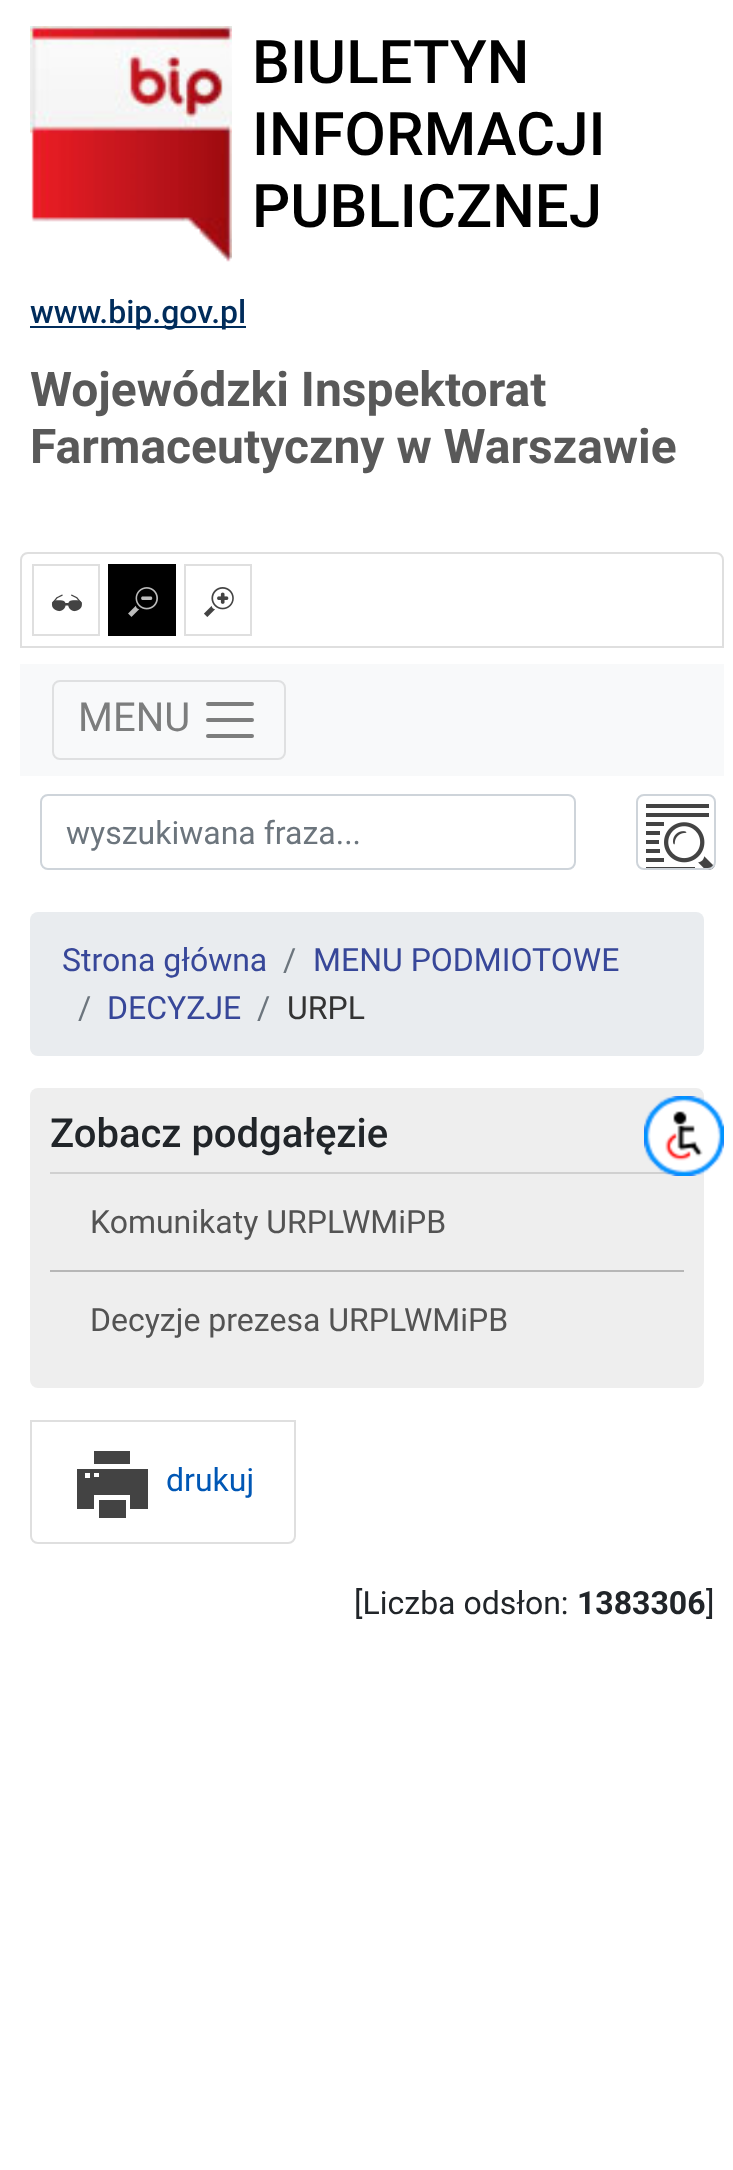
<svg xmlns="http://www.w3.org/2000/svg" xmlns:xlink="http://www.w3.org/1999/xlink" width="733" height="2170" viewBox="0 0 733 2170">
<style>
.cls-1{font:500 60px Roboto;fill:#000000}
.cls-2{font:500 32px Roboto;fill:#002c5b}
.cls-3{font:bold 48px Roboto;fill:#595959}
.cls-4{font:40px Roboto;fill:#7c7d7d}
.cls-5{font:32px Roboto;fill:#6c757d}
.cls-6{font:32px Roboto;fill:#374799}
.cls-7{font:32px Roboto;fill:#333333}
.cls-8{font:500 40px Roboto;fill:#212529}
.cls-9{font:32px Roboto;fill:#535353}
.cls-10{font:32px Roboto;fill:#0057b5}
.cls-11{font:32px Roboto;fill:#212529}
.cls-12{font:bold 32px Roboto;fill:#212529}
</style>
<rect width="100%" height="100%" fill="#ffffff"/>
<image xlink:href="image0.png" x="30" y="26" width="202" height="236"/>
<rect fill="#002c5b" x="30" y="326" width="216" height="2"/>
<path fill="none" stroke="#dfdfdf" stroke-width="2" d="M28 553H716C720 553 723 556 723 560V647H21V560C21 556 24 553 28 553Z"/>
<rect fill="none" stroke="#dfdfdf" stroke-width="2" x="33" y="565" width="66" height="70"/>
<image xlink:href="image1.png" x="51" y="594" width="31" height="18"/>
<rect fill="#000000" x="108" y="564" width="68" height="72"/>
<image xlink:href="image2.png" x="128" y="587" width="30" height="30"/>
<rect fill="none" stroke="#dfdfdf" stroke-width="2" x="185" y="565" width="66" height="70"/>
<image xlink:href="image3.png" x="204" y="587" width="30" height="30"/>
<rect fill="#f8f9fa" x="20" y="664" width="704" height="112"/>
<rect fill="none" stroke="#dfe0e1" stroke-width="2" x="53" y="681" width="232" height="78" rx="7"/>
<path fill="none" stroke="#7c7d7d" stroke-width="4" stroke-linecap="round" d="M208 704H252M208 720H252M208 736H252"/>
<rect fill="none" stroke="#ced4da" stroke-width="2" x="41" y="795" width="534" height="74" rx="7"/>
<image xlink:href="image4.png" x="646" y="804" width="69" height="66"/>
<rect fill="none" stroke="#ced4da" stroke-width="2" x="637" y="795" width="78" height="74" rx="7"/>
<rect fill="#e9ecef" x="30" y="912" width="674" height="144" rx="8"/>
<rect fill="#eeeeee" x="30" y="1088" width="674" height="300" rx="8"/>
<rect fill="#d0d0d0" x="50" y="1172" width="634" height="2"/>
<rect fill="#b6b6b6" x="50" y="1270" width="634" height="2"/>
<path fill="none" stroke="#dfdfdf" stroke-width="2" d="M31 1421H295V1536C295 1540 292 1543 288 1543H38C34 1543 31 1540 31 1536Z"/>
<rect fill="#434343" x="99" y="1500" width="27" height="18"/>
<rect fill="#434343" x="94" y="1451" width="36" height="13"/>
<path fill="#434343" fill-rule="evenodd" d="M77 1469V1509H94V1495H130V1509H148V1469ZM90 1478H85V1473H90ZM99 1477H94V1473H99Z"/>
<image xlink:href="image5.png" x="644" y="1096" width="80" height="80"/>
<text class="cls-1"><tspan x="252" y="83">BIULETYN</tspan><tspan x="252" y="155">INFORMACJI</tspan><tspan x="252" y="227">PUBLICZNEJ</tspan></text>
<text class="cls-2" x="30" y="323">www.bip.gov.pl</text>
<text class="cls-3"><tspan x="30" y="406">Wojewódzki Inspektorat</tspan><tspan x="30" y="463">Farmaceutyczny w Warszawie</tspan></text>
<text class="cls-4" x="78" y="731">MENU</text>
<text class="cls-5" x="66" y="844">wyszukiwana fraza...</text>
<text class="cls-6" x="62" y="971">Strona główna</text>
<text class="cls-5" x="283" y="971">/</text>
<text class="cls-6" x="313" y="971">MENU PODMIOTOWE</text>
<text class="cls-5" x="78" y="1019">/</text>
<text class="cls-6" x="107" y="1019">DECYZJE</text>
<text class="cls-5" x="257" y="1019">/</text>
<text class="cls-7" x="287" y="1019">URPL</text>
<text class="cls-8" x="50" y="1147">Zobacz podgałęzie</text>
<text class="cls-9" x="90" y="1233">Komunikaty URPLWMiPB</text>
<text class="cls-9" x="90" y="1331">Decyzje prezesa URPLWMiPB</text>
<text class="cls-10" x="166" y="1491">drukuj</text>
<text class="cls-11" x="354" y="1614">[Liczba odsłon:</text>
<text class="cls-12" x="577" y="1614">1383306</text>
<text class="cls-11" x="706" y="1614">]</text>
</svg>
